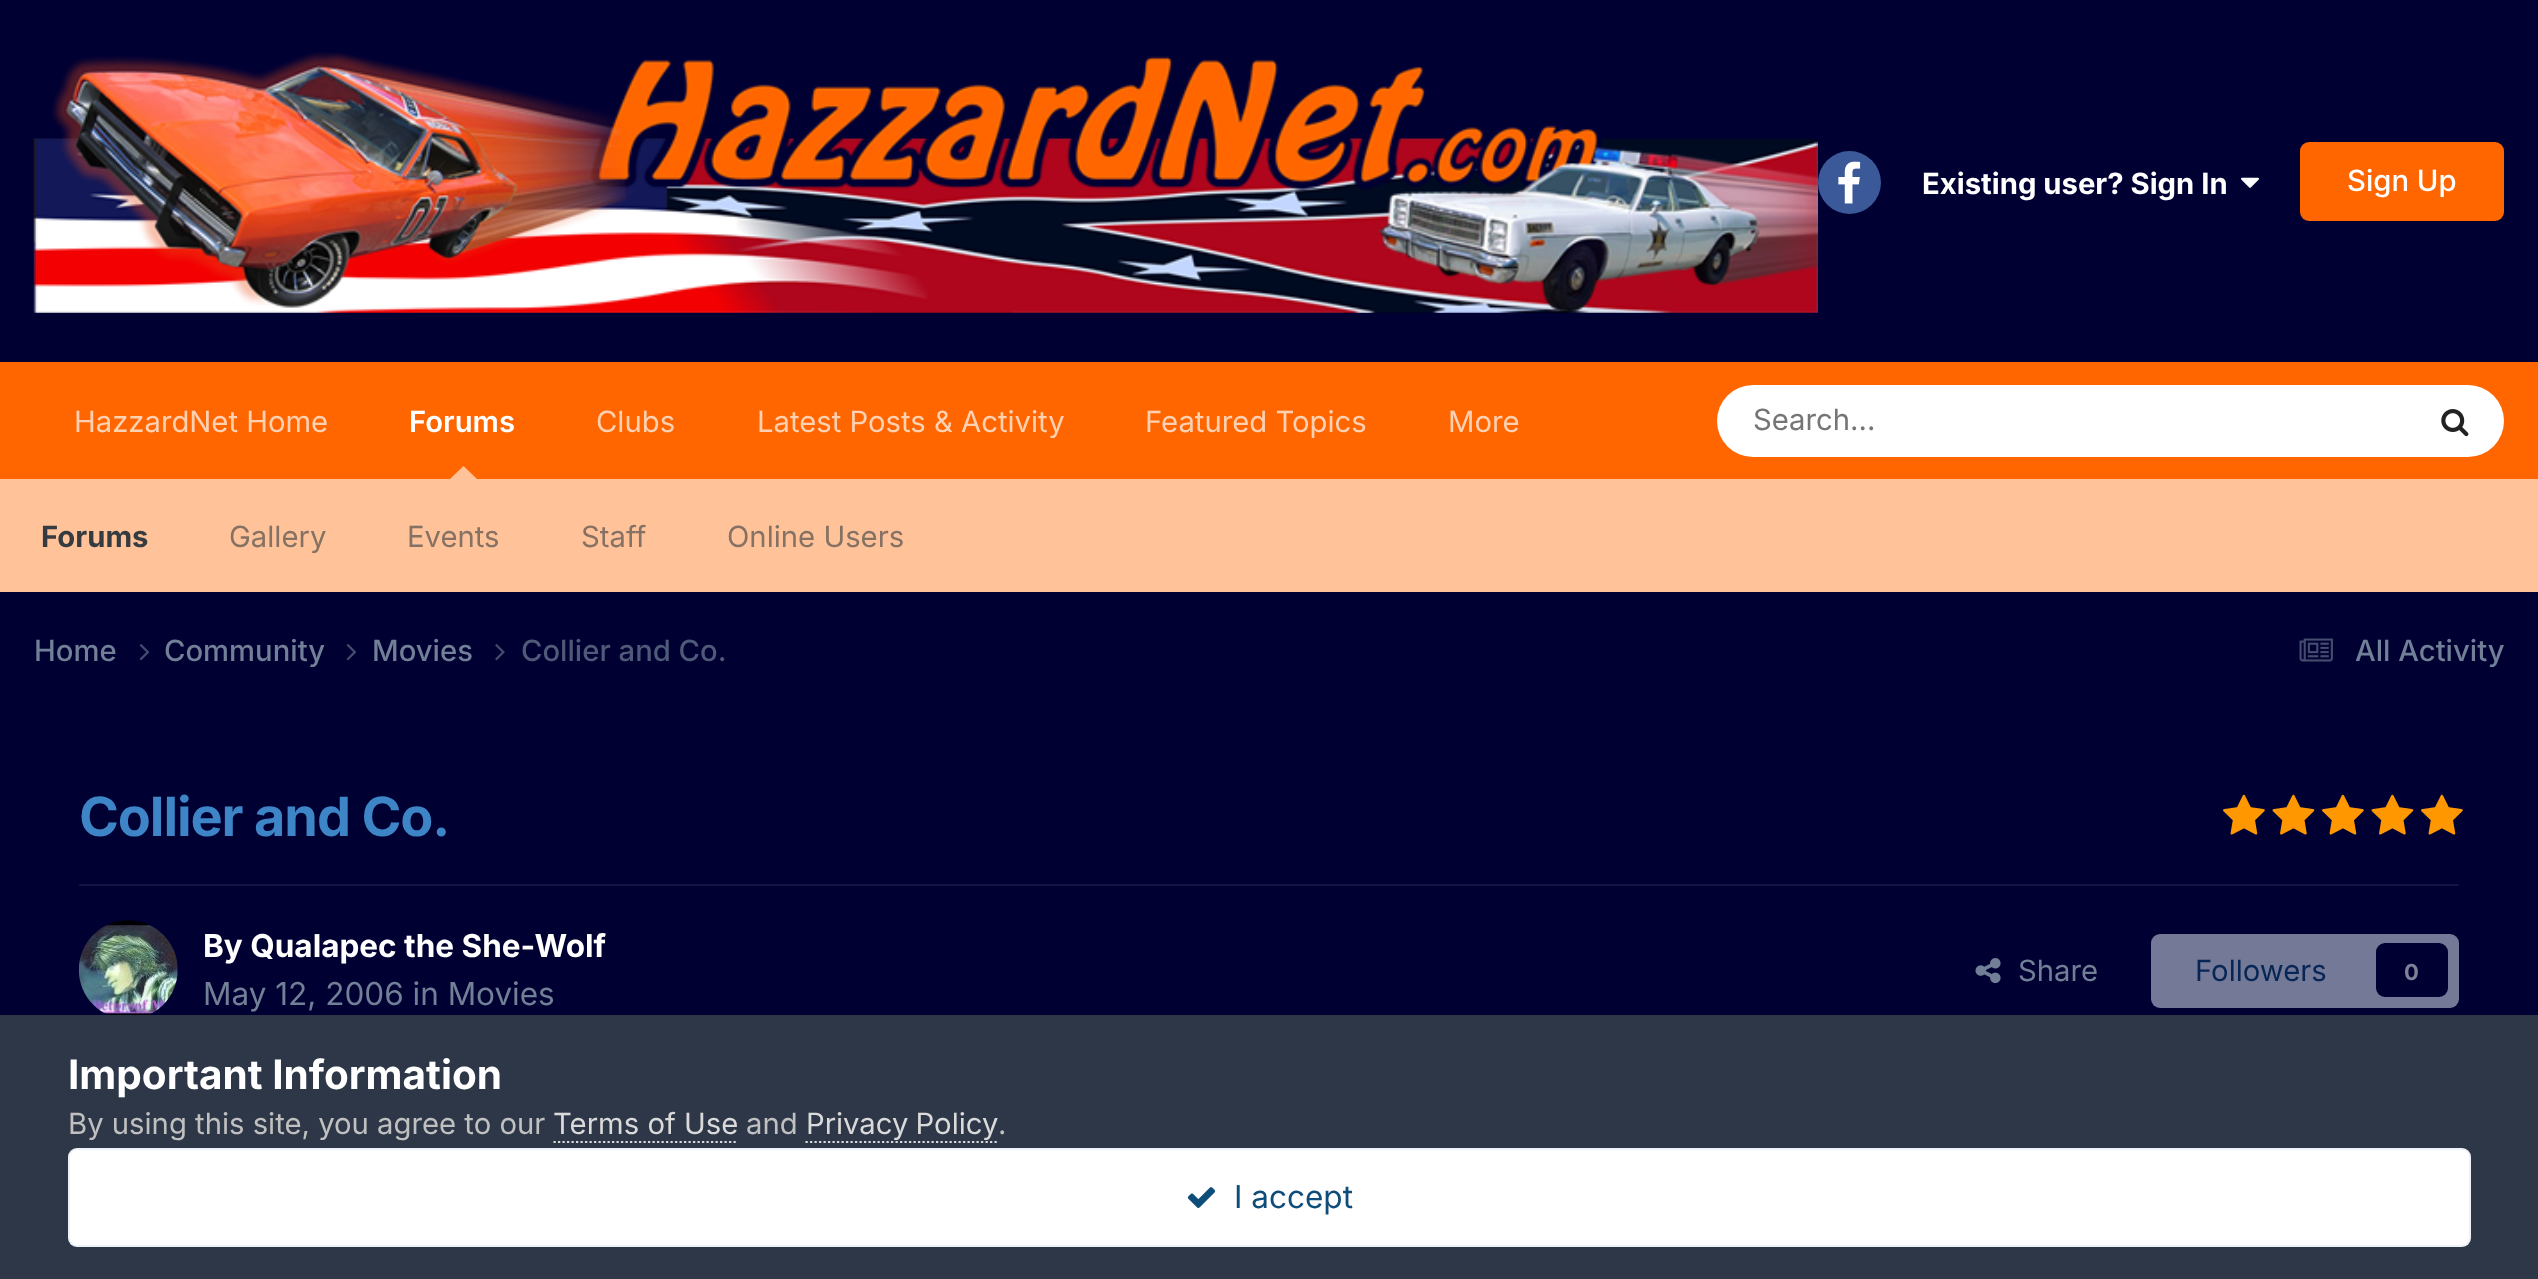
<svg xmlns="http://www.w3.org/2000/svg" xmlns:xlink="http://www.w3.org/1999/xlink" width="2538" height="1279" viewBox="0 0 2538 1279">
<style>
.cls-1{font:bold 29.25px Inter;fill:#ffffff}
.cls-2{font:500 29.25px Inter;fill:#ffffff}
.cls-3{font:600 29.25px Inter;fill:#ffffff}
.cls-4{font:bold 29.25px Inter;fill:#353c41}
.cls-5{font:29.25px Inter;fill:#867264}
.cls-6{font:29.25px Inter;fill:#ffd1b3}
.cls-7{font:29.25px Inter;fill:#757575}
.cls-8{font:500 29.25px Inter;fill:#718096}
.cls-9{font:500 29.25px Inter;fill:#4f5a78}
.cls-10{font:bold 54px Inter;letter-spacing:-1.1px;fill:#3d85c6}
.cls-11{font:bold 31.5px Inter;fill:#ffffff}
.cls-12{font:31.5px Inter;fill:#718096}
.cls-13{font:29.25px Inter;fill:#718096}
.cls-14{font:29.25px Inter;fill:#072656}
.cls-15{font:bold 22px Inter;fill:#808099}
.cls-16{font:bold 40.5px Inter;fill:#ffffff}
.cls-17{font:29.25px Inter;fill:#c0c0c0}
.cls-18{font:29.25px Inter;fill:#dadada}
.cls-19{font:31.5px Inter;fill:#0e4c79}
</style>
<rect width="100%" height="100%" fill="#000033"/>
<image xlink:href="image0.png" x="33" y="52" width="1785" height="261"/>
<circle fill="#3b5998" cx="1849.5" cy="182.5" r="31.5"/>
<image xlink:href="image1.png" x="1838" y="161" width="23" height="43"/>
<image xlink:href="image2.png" x="2241" y="177" width="18" height="11"/>
<rect fill="#ff6600" x="2300" y="142" width="204" height="79" rx="9"/>
<rect fill="#ff6600" x="0" y="362" width="2538" height="117"/>
<path fill="#ffc299" d="M477 479H450L463.5 466Z"/>
<rect fill="#ffffff" x="1717" y="385" width="787" height="72" rx="36"/>
<image xlink:href="image3.png" x="2441" y="409" width="28" height="28"/>
<rect fill="#ffc299" x="0" y="479" width="2538" height="113"/>
<image xlink:href="image4.png" x="139" y="644" width="11" height="17"/>
<image xlink:href="image4.png" x="346" y="644" width="11" height="17"/>
<image xlink:href="image5.png" x="495" y="644" width="10" height="17"/>
<image xlink:href="image6.png" x="2299" y="638" width="34" height="24"/>
<image xlink:href="image7.png" x="2223" y="794" width="42" height="41"/>
<image xlink:href="image8.png" x="2272" y="794" width="43" height="41"/>
<image xlink:href="image7.png" x="2322" y="794" width="42" height="41"/>
<image xlink:href="image8.png" x="2371" y="794" width="43" height="41"/>
<image xlink:href="image7.png" x="2421" y="794" width="42" height="41"/>
<rect fill="#141443" x="79" y="884" width="2380" height="2"/>
<image xlink:href="image9.png" x="78" y="920" width="100" height="95"/>
<image xlink:href="image10.png" x="1975" y="958" width="26" height="26"/>
<rect fill="#747997" x="2151" y="934" width="308" height="74" rx="9"/>
<rect fill="#000033" x="2376" y="943" width="72" height="54" rx="9"/>
<rect fill="#2d3748" x="0" y="1015" width="2538" height="264"/>
<path fill="none" stroke="#dadada" stroke-width="2.2" stroke-dasharray="2.25 2.25" d="M553.5 1142H738"/>
<path fill="none" stroke="#dadada" stroke-width="2.2" stroke-dasharray="2.25 2.25" d="M805.5 1142H999"/>
<rect fill="#ffffff" x="68" y="1148" width="2403" height="99" rx="9"/>
<rect fill="none" stroke="#0e4c79" stroke-opacity="0.07" stroke-width="2" x="69" y="1149" width="2401" height="97" rx="8"/>
<image xlink:href="image11.png" x="1187" y="1187" width="29" height="21"/>
<text class="cls-1" x="1922" y="194">Existing user? Sign In</text>
<text class="cls-2" x="2347" y="191">Sign Up</text>
<text class="cls-3" x="409" y="432">Forums</text>
<text class="cls-4" x="41" y="547">Forums</text>
<text class="cls-5" x="229" y="547">Gallery</text>
<text class="cls-5" x="407" y="547">Events</text>
<text class="cls-5" x="581" y="547">Staff</text>
<text class="cls-5" x="727" y="547">Online Users</text>
<text class="cls-6" x="74" y="432">HazzardNet Home</text>
<text class="cls-6" x="596" y="432">Clubs</text>
<text class="cls-6" x="757" y="432">Latest Posts &amp; Activity</text>
<text class="cls-6" x="1145" y="432">Featured Topics</text>
<text class="cls-6" x="1448" y="432">More</text>
<text class="cls-7" x="1753" y="430">Search...</text>
<text class="cls-8" x="34" y="661">Home</text>
<text class="cls-8" x="164" y="661">Community</text>
<text class="cls-8" x="372" y="661">Movies</text>
<text class="cls-9" x="521" y="661">Collier and Co.</text>
<text class="cls-8" x="2355" y="661">All Activity</text>
<text class="cls-10" x="79" y="836">Collier and Co.</text>
<text class="cls-11" x="203" y="957">By Qualapec the She-Wolf</text>
<text class="cls-12" x="203" y="1005">May 12, 2006 in Movies</text>
<text class="cls-13" x="2018" y="981">Share</text>
<text class="cls-14" x="2195" y="981">Followers</text>
<text class="cls-15" x="2404" y="980">0</text>
<text class="cls-16" x="68" y="1089">Important Information</text>
<text class="cls-17" x="68" y="1134">By using this site, you agree to our</text>
<text class="cls-18" x="553" y="1134">Terms of Use</text>
<text class="cls-17" x="746" y="1134">and</text>
<text class="cls-18" x="806" y="1134" word-spacing="-1">Privacy Policy</text>
<text class="cls-17" x="998" y="1134">.</text>
<text class="cls-19" x="1234" y="1208">I accept</text>
</svg>
